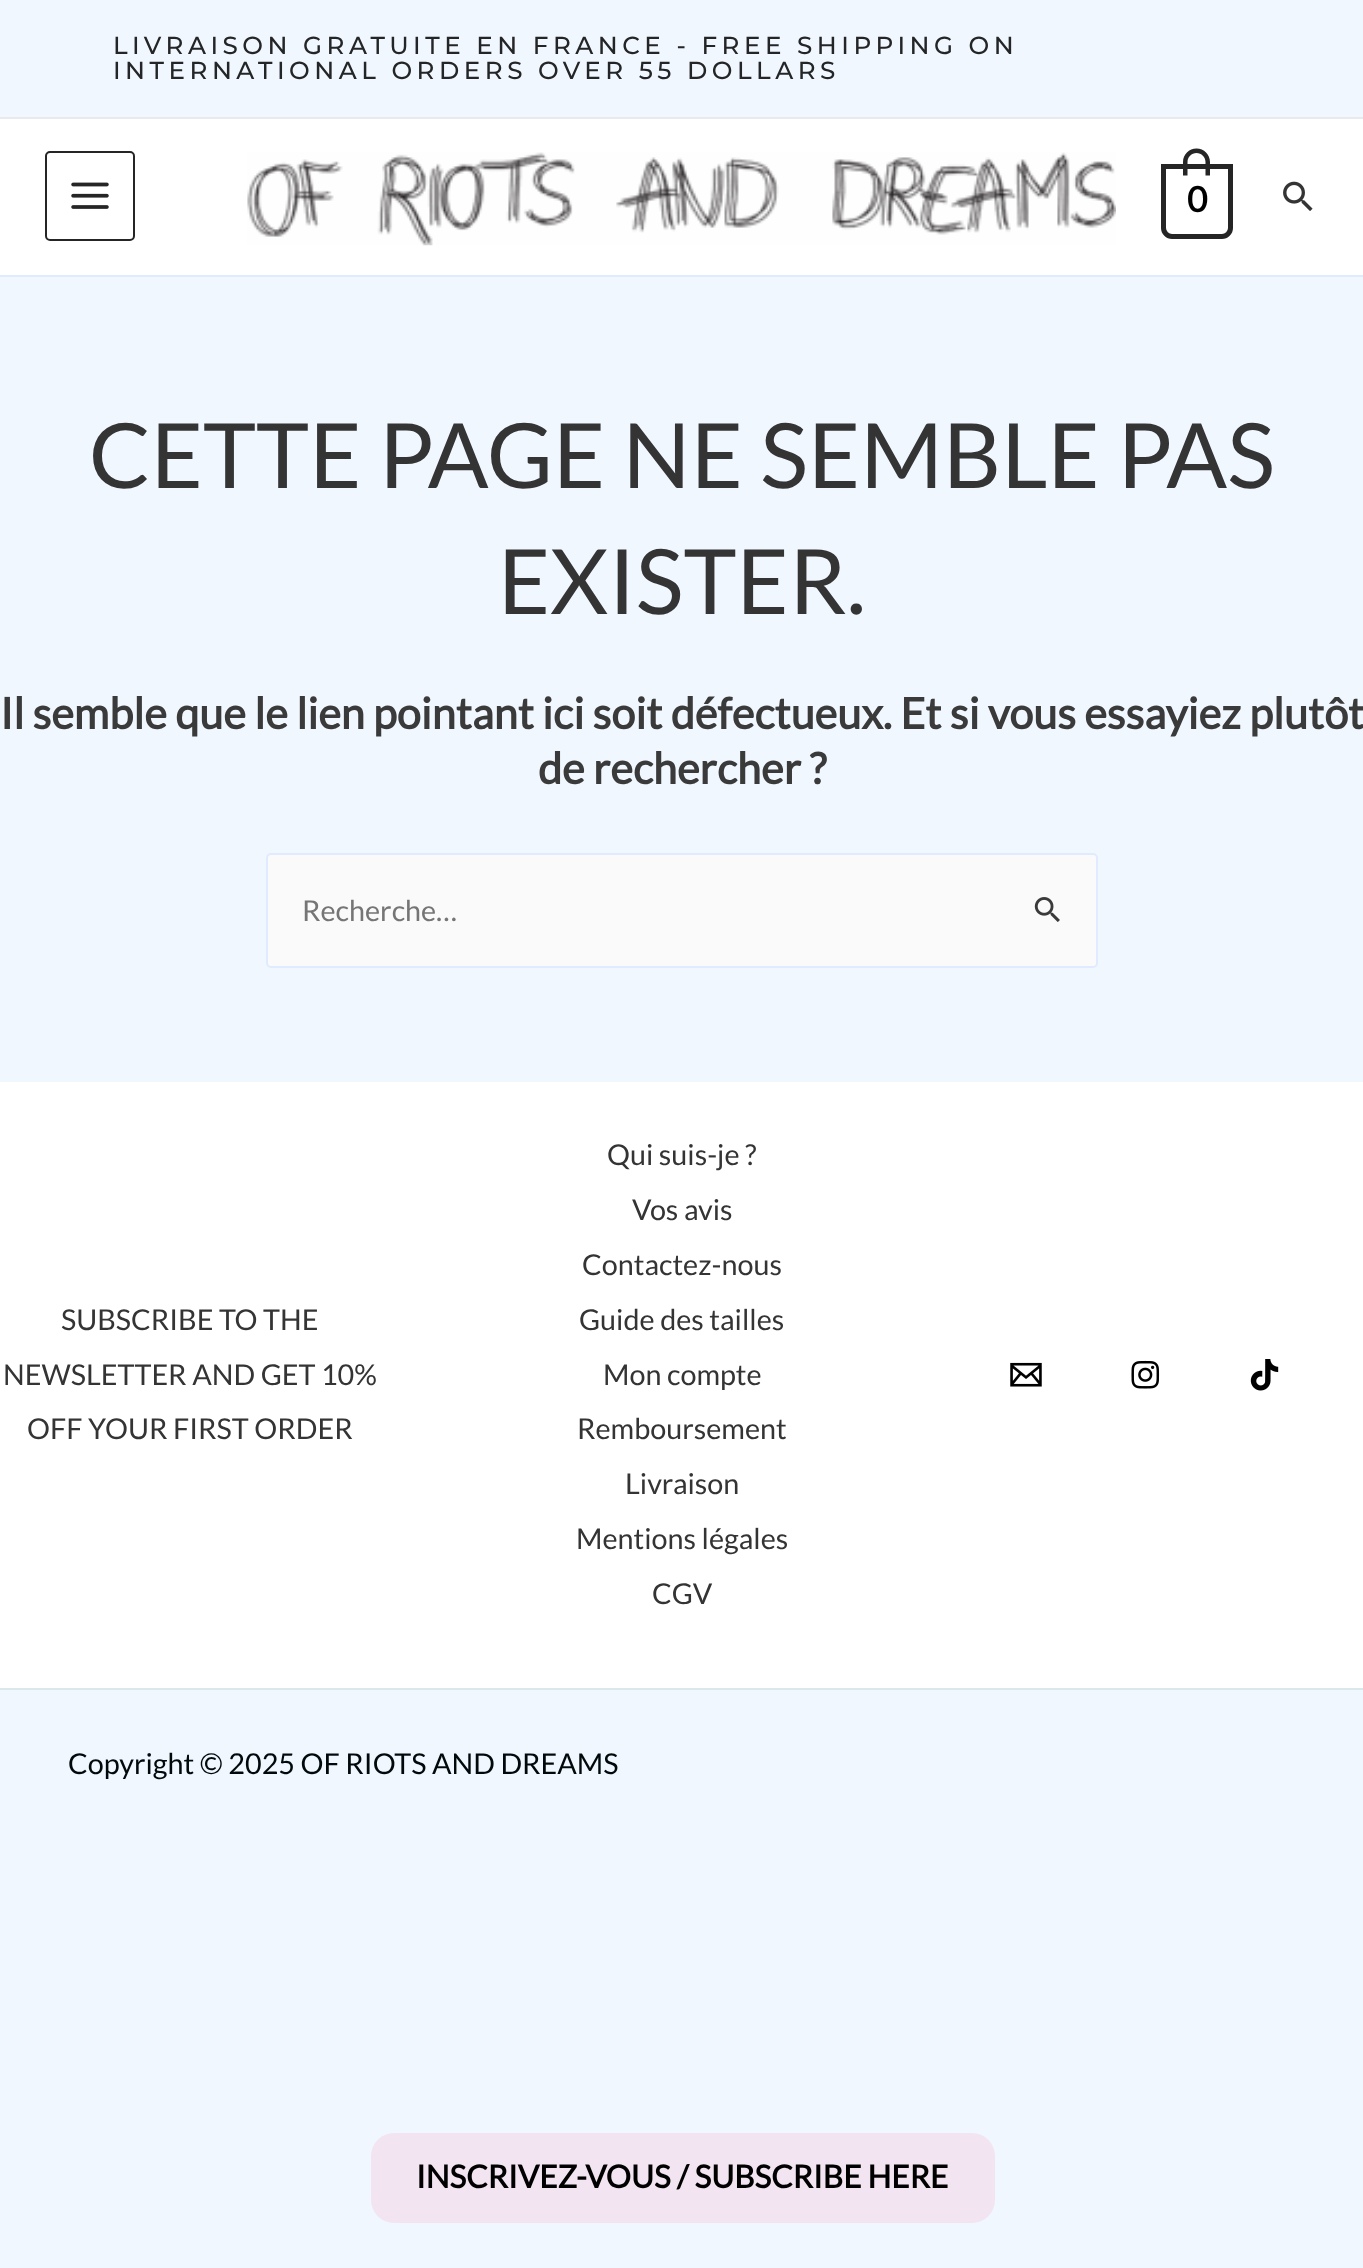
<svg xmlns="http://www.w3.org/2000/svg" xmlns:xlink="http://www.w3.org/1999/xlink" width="1363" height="2268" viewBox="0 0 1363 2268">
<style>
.cls-1{font:100 24.6px Montserrat;letter-spacing:4.5px;fill:#242526}
.cls-2{font:bold 35px Lato;fill:#000000}
.cls-3{font:90px Lato;fill:#343434}
.cls-4{font:bold 43.1px Lato;fill:#3a3a3a}
.cls-5{font:28.75px Lato;fill:#757575}
.cls-6{font:28.75px Lato;fill:#343434}
.cls-7{font:28.75px Lato;fill:#000a0b}
.cls-8{font:bold 31.5px Lato;fill:#000000}
</style>
<rect width="100%" height="100%" fill="#f0f7ff"/>
<rect fill="#eaeaea" x="0" y="117" width="1363" height="2"/>
<rect fill="#ffffff" x="0" y="119" width="1363" height="156"/>
<rect fill="#e1ebff" x="0" y="275" width="1363" height="2"/>
<rect fill="none" stroke="#262525" stroke-width="2" x="46" y="152" width="88" height="88" rx="4"/>
<image xlink:href="image0.png" x="71" y="182" width="38" height="27"/>
<image xlink:href="image1.png" x="247" y="152" width="869" height="94"/>
<path fill="none" stroke="#262525" stroke-width="5" d="M1163.5 166.5H1230.5V228C1230.5 232.5 1226.5 236.5 1222 236.5H1172C1167.5 236.5 1163.5 232.5 1163.5 228Z"/>
<path fill="#262525" fill-rule="evenodd" d="M1196.5 148.5C1204 148.5 1210 154.5 1210 162V175.5H1183V162C1183 154.5 1189 148.5 1196.5 148.5ZM1196.5 153C1201.5 153 1205.5 157 1205.5 162V175.5H1187.5V162C1187.5 157 1191.5 153 1196.5 153Z"/>
<image xlink:href="image2.png" x="1283" y="181" width="30" height="30"/>
<rect fill="#fafafa" stroke="#e1ebff" stroke-width="2" x="267" y="854" width="830" height="113" rx="4"/>
<image xlink:href="image3.png" x="1034" y="897" width="26" height="25"/>
<rect fill="#ffffff" x="0" y="1082" width="1363" height="606"/>
<image xlink:href="image4.png" x="1010" y="1362" width="32" height="25"/>
<image xlink:href="image5.png" x="1131" y="1360" width="29" height="29"/>
<image xlink:href="image6.png" x="1250" y="1359" width="29" height="32"/>
<rect fill="#dbe8eb" x="0" y="1688" width="1363" height="2"/>
<rect fill="#f3e4f2" x="371" y="2133" width="624" height="90" rx="23"/>
<text class="cls-1"><tspan x="113" y="54">LIVRAISON GRATUITE EN FRANCE - FREE SHIPPING ON</tspan><tspan x="113" y="79">INTERNATIONAL ORDERS OVER 55 DOLLARS</tspan></text>
<text class="cls-2" x="1187" y="212">0</text>
<text class="cls-3" x="89" y="488">CETTE PAGE NE SEMBLE PAS</text>
<text class="cls-3" x="498" y="614">EXISTER.</text>
<text class="cls-4" x="0" y="729">Il semble que le lien pointant ici soit défectueux. Et si vous essayiez plutôt</text>
<text class="cls-4" x="538" y="784">de rechercher ?</text>
<text class="cls-5" x="302" y="921">Recherche…</text>
<text class="cls-6" x="61" y="1330">SUBSCRIBE TO THE</text>
<text class="cls-6" x="3" y="1385">NEWSLETTER AND GET 10%</text>
<text class="cls-6" x="27" y="1439">OFF YOUR FIRST ORDER</text>
<text class="cls-6" x="607" y="1165">Qui suis-je ?</text>
<text class="cls-6" x="632" y="1220">Vos avis</text>
<text class="cls-6" x="582" y="1275">Contactez-nous</text>
<text class="cls-6" x="579" y="1330">Guide des tailles</text>
<text class="cls-6" x="603" y="1385">Mon compte</text>
<text class="cls-6" x="577" y="1439">Remboursement</text>
<text class="cls-6" x="625" y="1494">Livraison</text>
<text class="cls-6" x="576" y="1549">Mentions légales</text>
<text class="cls-6" x="652" y="1604">CGV</text>
<text class="cls-7" x="68" y="1774">Copyright © 2025 OF RIOTS AND DREAMS</text>
<text class="cls-8" x="416" y="2188">INSCRIVEZ-VOUS / SUBSCRIBE HERE</text>
</svg>
